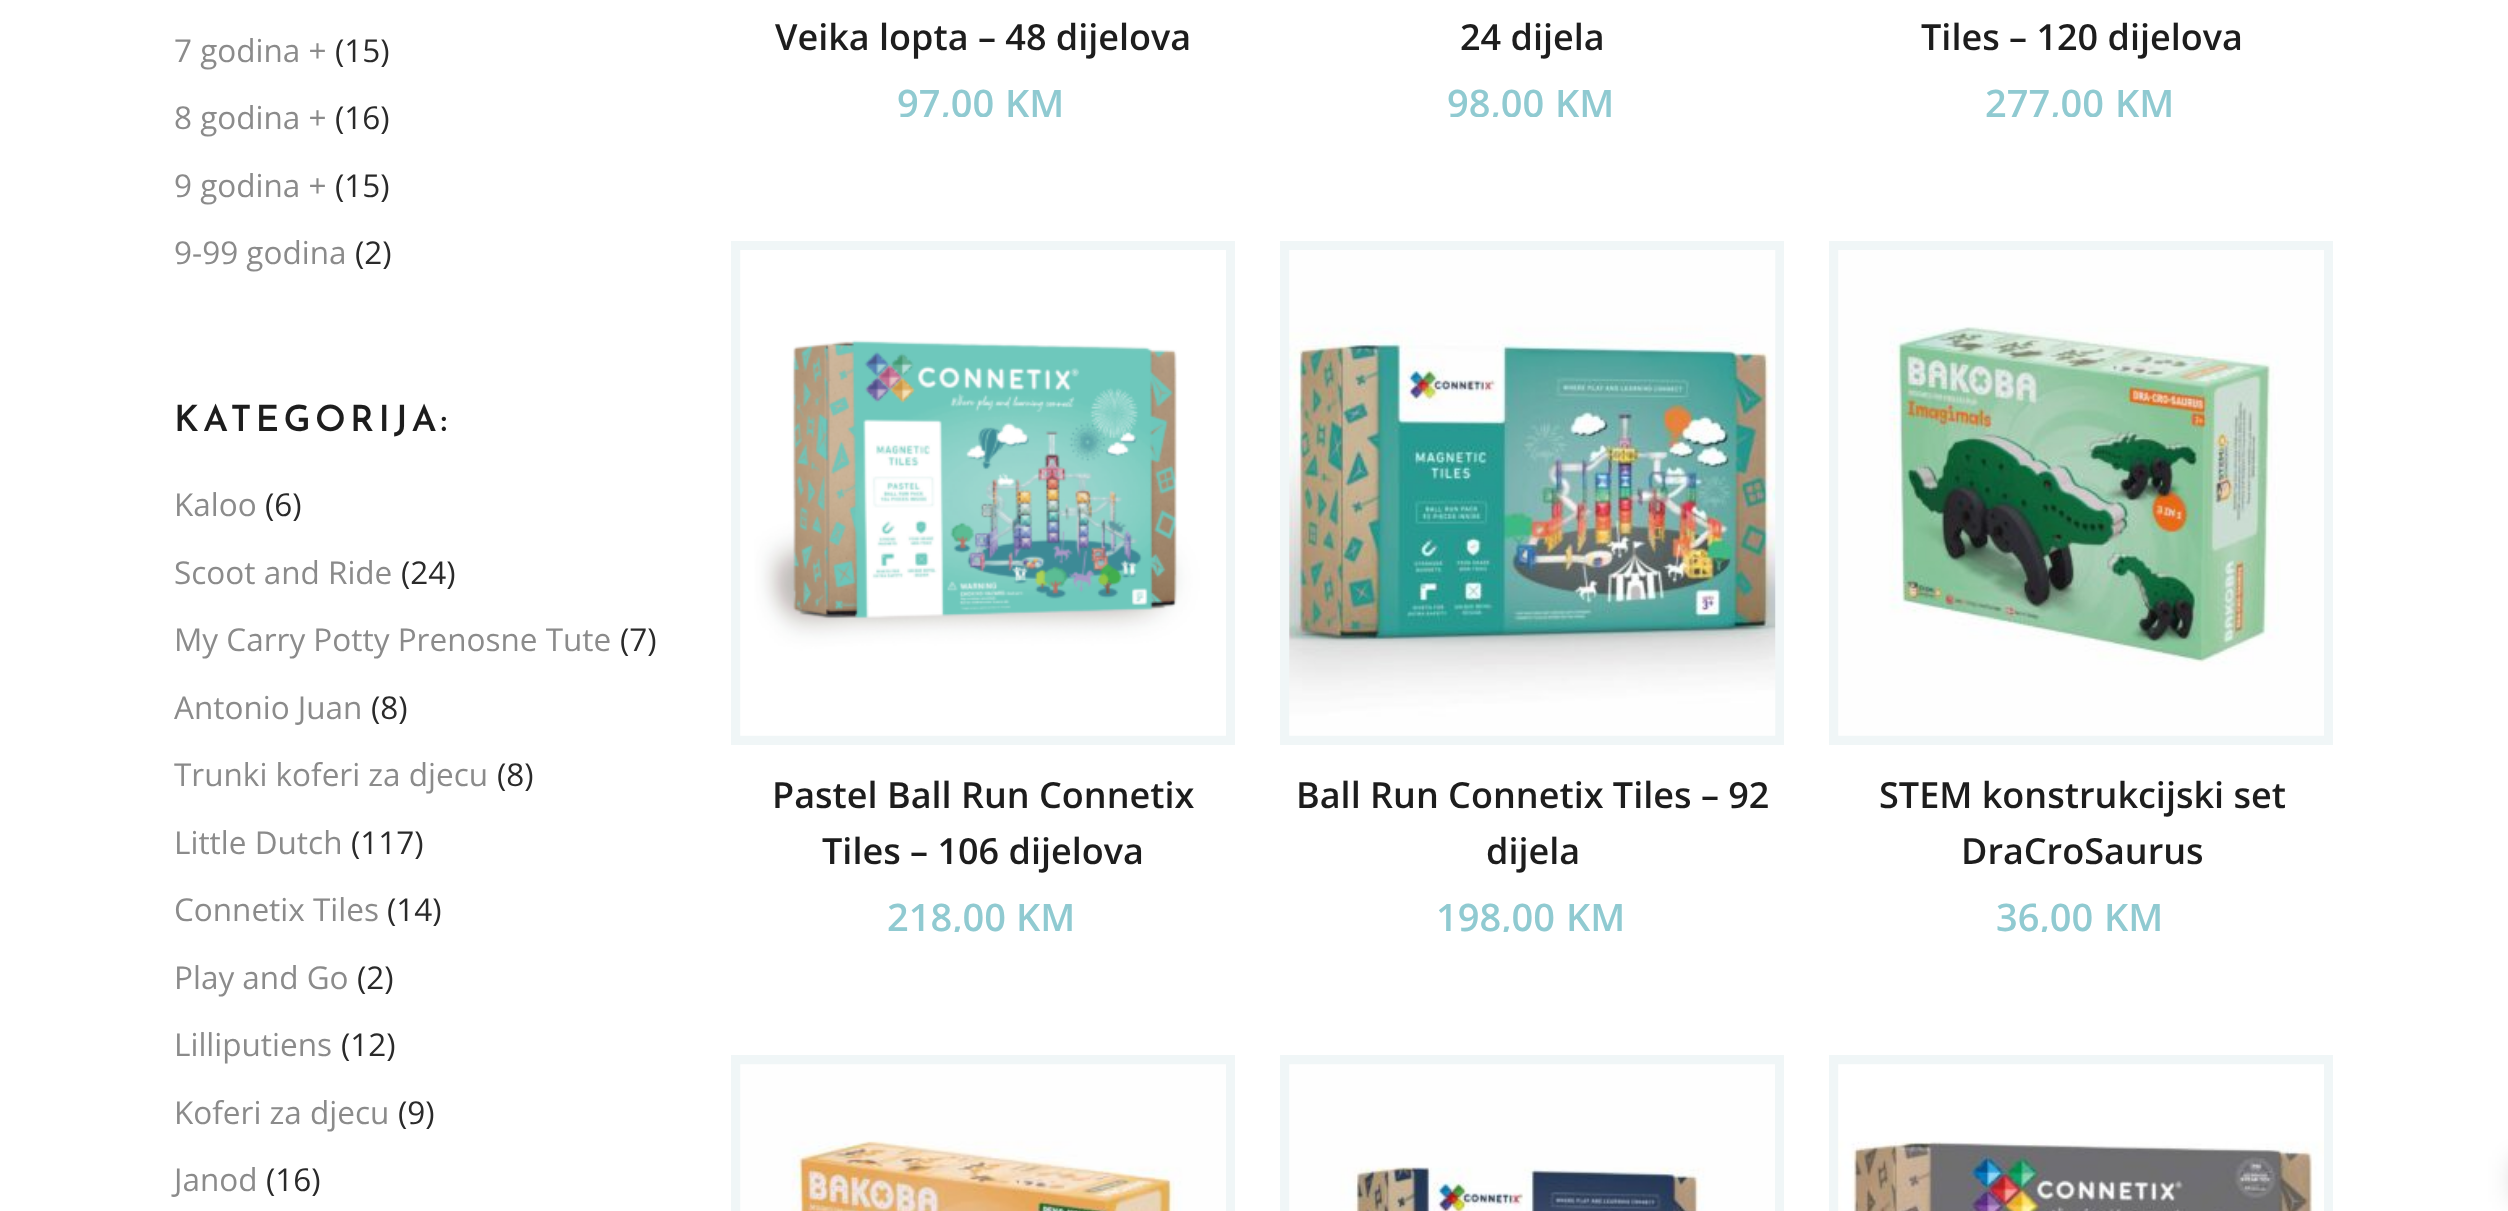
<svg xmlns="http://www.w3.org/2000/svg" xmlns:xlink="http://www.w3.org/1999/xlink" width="2508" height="1211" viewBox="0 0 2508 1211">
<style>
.cls-1{font:31.5px Open Sans;fill:#8b8b8b}
.cls-2{font:31.5px Open Sans;fill:#2a2a2a}
.cls-3{font:600 36px Josefin Sans;letter-spacing:4.25px;fill:#1d1d1d}
.cls-4{font:600 36px Open Sans;fill:#1d1d1d}
.cls-5{font:600 38px Open Sans;fill:#90cad1}
</style>
<defs>
<clipPath id="clip1"><rect x="731" y="65" width="504" height="52"/></clipPath>
<clipPath id="clip2"><rect x="1280" y="65" width="504" height="52"/></clipPath>
<clipPath id="clip3"><rect x="1829" y="65" width="504" height="52"/></clipPath>
<clipPath id="clip4"><rect x="731" y="880" width="504" height="52"/></clipPath>
<clipPath id="clip5"><rect x="1280" y="880" width="504" height="52"/></clipPath>
<clipPath id="clip6"><rect x="1829" y="880" width="504" height="52"/></clipPath>
</defs>
<rect width="100%" height="100%" fill="#ffffff"/>
<rect fill="#f0f6f7" x="731" y="241" width="504" height="504"/>
<image xlink:href="image0.png" x="740" y="250" width="486" height="486"/>
<rect fill="#f0f6f7" x="1280" y="241" width="504" height="504"/>
<image xlink:href="image1.png" x="1289" y="250" width="487" height="486"/>
<rect fill="#f0f6f7" x="1829" y="241" width="504" height="504"/>
<image xlink:href="image2.png" x="1838" y="250" width="486" height="486"/>
<rect fill="#f0f6f7" x="731" y="1055" width="504" height="156"/>
<image xlink:href="image3.png" x="740" y="1064" width="486" height="147"/>
<rect fill="#f0f6f7" x="1280" y="1055" width="504" height="156"/>
<image xlink:href="image4.png" x="1289" y="1064" width="486" height="147"/>
<rect fill="#f0f6f7" x="1829" y="1055" width="504" height="156"/>
<image xlink:href="image5.png" x="1838" y="1064" width="486" height="147"/>
<rect fill="#000000" fill-opacity="0.1" filter="blur(11px)" x="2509" y="1157" width="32" height="45"/>
<text class="cls-1" x="174" y="62">7 godina +</text>
<text class="cls-2" x="335" y="62">(15)</text>
<text class="cls-1" x="174" y="129">8 godina +</text>
<text class="cls-2" x="335" y="129">(16)</text>
<text class="cls-1" x="174" y="197">9 godina +</text>
<text class="cls-2" x="335" y="197">(15)</text>
<text class="cls-1" x="174" y="264">9-99 godina</text>
<text class="cls-2" x="355" y="264">(2)</text>
<text class="cls-3" x="174" y="431">KATEGORIJA:</text>
<text class="cls-1" x="174" y="516">Kaloo</text>
<text class="cls-2" x="265" y="516">(6)</text>
<text class="cls-1" x="174" y="584">Scoot and Ride</text>
<text class="cls-2" x="401" y="584">(24)</text>
<text class="cls-1" x="174" y="651">My Carry Potty Prenosne Tute</text>
<text class="cls-2" x="620" y="651">(7)</text>
<text class="cls-1" x="174" y="719">Antonio Juan</text>
<text class="cls-2" x="371" y="719">(8)</text>
<text class="cls-1" x="174" y="786">Trunki koferi za djecu</text>
<text class="cls-2" x="497" y="786">(8)</text>
<text class="cls-1" x="174" y="854">Little Dutch</text>
<text class="cls-2" x="351" y="854">(117)</text>
<text class="cls-1" x="174" y="921">Connetix Tiles</text>
<text class="cls-2" x="387" y="921">(14)</text>
<text class="cls-1" x="174" y="989">Play and Go</text>
<text class="cls-2" x="357" y="989">(2)</text>
<text class="cls-1" x="174" y="1056">Lilliputiens</text>
<text class="cls-2" x="341" y="1056">(12)</text>
<text class="cls-1" x="174" y="1124">Koferi za djecu</text>
<text class="cls-2" x="398" y="1124">(9)</text>
<text class="cls-1" x="174" y="1191">Janod</text>
<text class="cls-2" x="266" y="1191">(16)</text>
<text class="cls-4" x="775" y="50">Veika lopta – 48 dijelova</text>
<g clip-path="url(#clip1)">
<text class="cls-5" x="897" y="117">97,00</text>
</g>
<text class="cls-5" x="1005" y="117">KM</text>
<text class="cls-4" x="1460" y="50">24 dijela</text>
<g clip-path="url(#clip2)">
<text class="cls-5" x="1447" y="117">98,00</text>
</g>
<text class="cls-5" x="1555" y="117">KM</text>
<text class="cls-4" x="1921" y="50">Tiles – 120 dijelova</text>
<g clip-path="url(#clip3)">
<text class="cls-5" x="1985" y="117">277,00</text>
</g>
<text class="cls-5" x="2115" y="117">KM</text>
<text class="cls-4" x="772" y="808">Pastel Ball Run Connetix</text>
<text class="cls-4" x="822" y="864">Tiles – 106 dijelova</text>
<g clip-path="url(#clip4)">
<text class="cls-5" x="887" y="931">218,00</text>
</g>
<text class="cls-5" x="1016" y="931">KM</text>
<text class="cls-4" x="1296" y="808">Ball Run Connetix Tiles – 92</text>
<text class="cls-4" x="1486" y="864">dijela</text>
<g clip-path="url(#clip5)">
<text class="cls-5" x="1436" y="931">198,00</text>
</g>
<text class="cls-5" x="1566" y="931">KM</text>
<text class="cls-4" x="1879" y="808">STEM konstrukcijski set</text>
<text class="cls-4" x="1961" y="864">DraCroSaurus</text>
<g clip-path="url(#clip6)">
<text class="cls-5" x="1996" y="931">36,00</text>
</g>
<text class="cls-5" x="2104" y="931">KM</text>
</svg>
